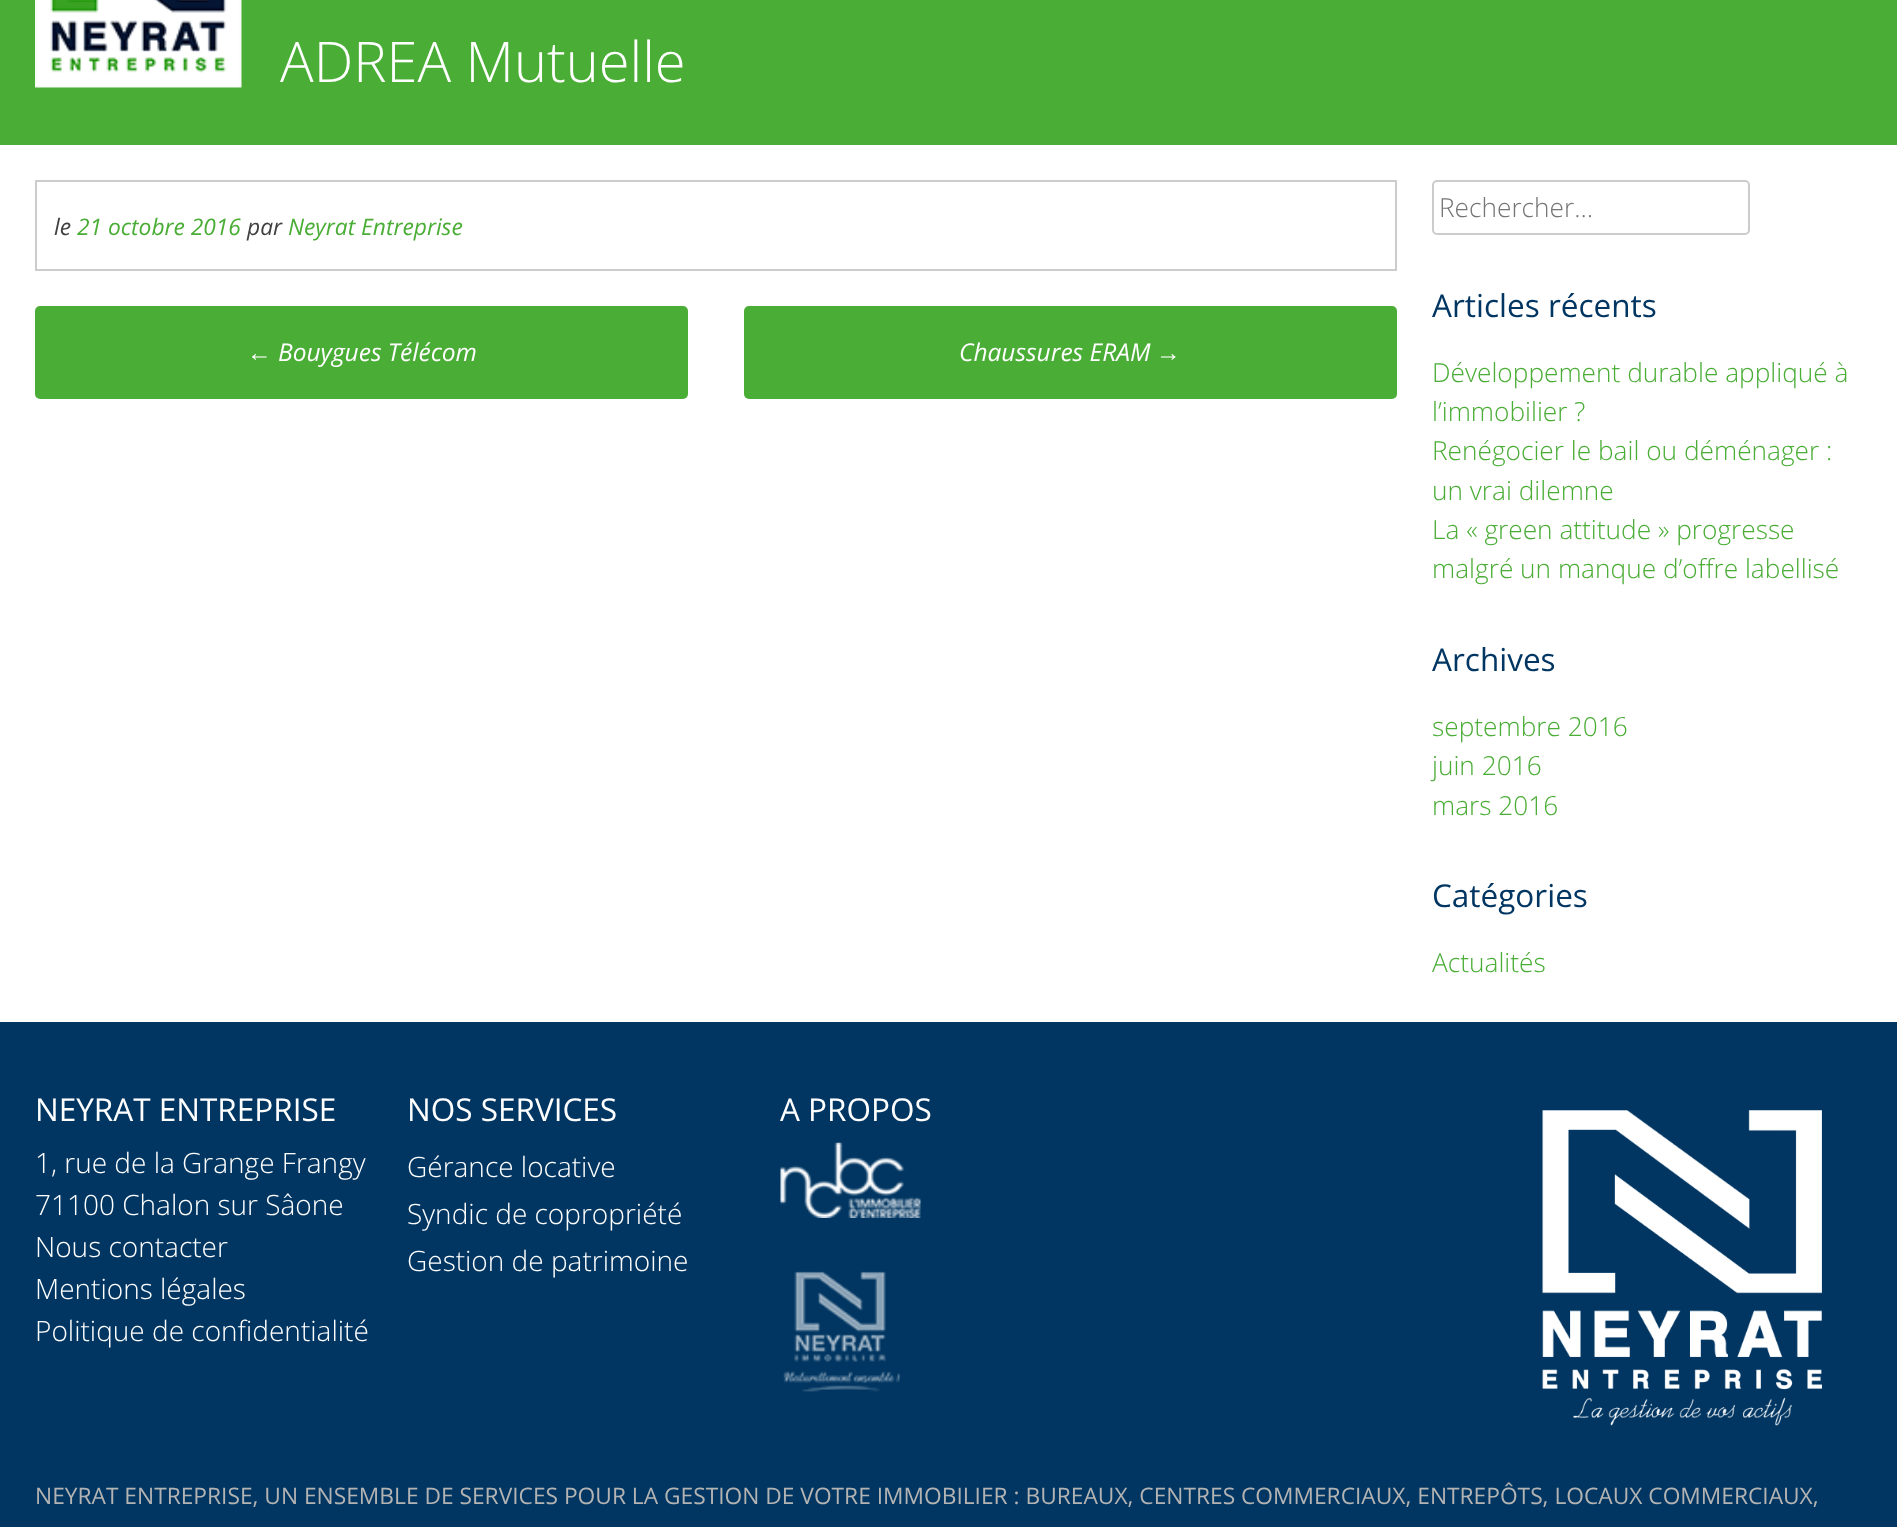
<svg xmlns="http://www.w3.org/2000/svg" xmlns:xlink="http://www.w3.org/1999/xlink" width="1897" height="1527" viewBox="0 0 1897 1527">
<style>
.cls-1{font:300 56px Open Sans;fill:#ffffff}
.cls-2{font:italic 22.75px Open Sans;fill:#404040}
.cls-3{font:italic 22.75px Open Sans;fill:#4aad36}
.cls-4{font:italic 24.5px Liberation Sans;fill:#ffffff}
.cls-5{font:italic 24.5px Open Sans;fill:#ffffff}
.cls-6{font:300 26.25px Open Sans;fill:#757575}
.cls-7{font:31.5px Open Sans;fill:#013662}
.cls-8{font:300 26.25px Open Sans;fill:#4aad36}
.cls-9{font:31.5px Open Sans;fill:#ffffff}
.cls-10{font:300 28px Open Sans;fill:#ffffff}
.cls-11{font:22.75px Open Sans;fill:#b3b3b3}
</style>
<rect width="100%" height="100%" fill="#ffffff"/>
<rect fill="#4aad36" x="0" y="0" width="1897" height="145"/>
<image xlink:href="image0.png" x="35" y="0" width="207" height="88"/>
<rect fill="none" stroke="#cccccc" stroke-width="2" x="36" y="181" width="1360" height="89"/>
<rect fill="#4aad36" x="35" y="306" width="653" height="93" rx="5"/>
<rect fill="#4aad36" x="744" y="306" width="653" height="93" rx="5"/>
<rect fill="none" stroke="#cccccc" stroke-width="2" x="1433" y="181" width="316" height="53" rx="4"/>
<rect fill="#013662" x="0" y="1022" width="1897" height="505"/>
<image xlink:href="image1.png" x="780" y="1142" width="141" height="76"/>
<image xlink:href="image2.png" x="783" y="1271" width="117" height="121"/>
<image xlink:href="image3.png" x="1542" y="1110" width="280" height="316"/>
<text class="cls-1" x="280" y="82">ADREA Mutuelle</text>
<text class="cls-2" x="54" y="235">le</text>
<text class="cls-3" x="77" y="235">21 octobre 2016</text>
<text class="cls-2" x="247" y="235">par</text>
<text class="cls-3" x="288" y="235">Neyrat Entreprise</text>
<text class="cls-4" x="247" y="361">←</text>
<text class="cls-5" x="278" y="361">Bouygues Télécom</text>
<text class="cls-5" x="959" y="361">Chaussures ERAM</text>
<text class="cls-4" x="1156" y="361">→</text>
<text class="cls-6" x="1439" y="217">Rechercher…</text>
<text class="cls-7" x="1432" y="317">Articles récents</text>
<text class="cls-8"><tspan x="1432" y="382">Développement durable appliqué à</tspan><tspan x="1432" y="421">l’immobilier ?</tspan><tspan x="1432" y="460">Renégocier le bail ou déménager :</tspan><tspan x="1432" y="500">un vrai dilemne</tspan><tspan x="1432" y="539">La « green attitude » progresse</tspan><tspan x="1432" y="578">malgré un manque d’offre labellisé</tspan></text>
<text class="cls-7" x="1432" y="671">Archives</text>
<text class="cls-8"><tspan x="1432" y="736">septembre 2016</tspan><tspan x="1432" y="775">juin 2016</tspan><tspan x="1432" y="815">mars 2016</tspan></text>
<text class="cls-7" x="1432" y="907">Catégories</text>
<text class="cls-8" x="1432" y="972">Actualités</text>
<text class="cls-9" x="35" y="1121">NEYRAT ENTREPRISE</text>
<text class="cls-10"><tspan x="35" y="1173">1, rue de la Grange Frangy</tspan><tspan x="35" y="1215">71100 Chalon sur Sâone</tspan><tspan x="35" y="1257">Nous contacter</tspan><tspan x="35" y="1299">Mentions légales</tspan><tspan x="35" y="1341">Politique de confidentialité</tspan></text>
<text class="cls-9" x="407" y="1121">NOS SERVICES</text>
<text class="cls-10"><tspan x="407" y="1177">Gérance locative</tspan><tspan x="407" y="1224">Syndic de copropriété</tspan><tspan x="407" y="1271">Gestion de patrimoine</tspan></text>
<text class="cls-9" x="780" y="1121">A PROPOS</text>
<text class="cls-11" x="35" y="1504">NEYRAT ENTREPRISE, UN ENSEMBLE DE SERVICES POUR LA GESTION DE VOTRE IMMOBILIER : BUREAUX, CENTRES COMMERCIAUX, ENTREPÔTS, LOCAUX COMMERCIAUX,</text>
</svg>
